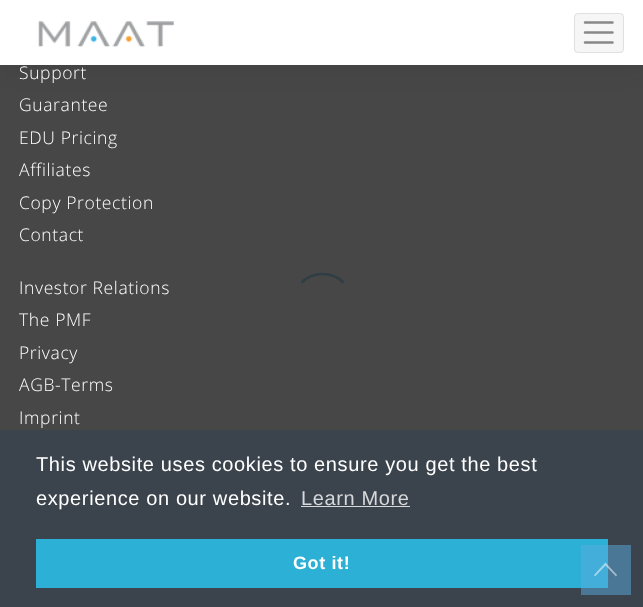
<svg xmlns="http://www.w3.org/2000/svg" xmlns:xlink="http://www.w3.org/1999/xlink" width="643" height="607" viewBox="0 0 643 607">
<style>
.cls-1{font:300 17.5px Open Sans;letter-spacing:0.62px;fill:#ffffff}
.cls-2{font:20px Liberation Sans;letter-spacing:0.62px;fill:#ffffff}
.cls-3{font:20px Liberation Sans;letter-spacing:0.62px;fill:#d7d9db}
.cls-4{font:bold 18px Liberation Sans;letter-spacing:0.62px;fill:#ffffff}
</style>
<rect width="100%" height="100%" fill="#474747"/>
<rect fill="#1a1a1a" fill-opacity="0.1" filter="blur(9.5px)" x="0" y="6" width="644" height="65"/>
<rect fill="#ffffff" x="0" y="0" width="643" height="65"/>
<image xlink:href="image0.png" x="38" y="21" width="136" height="26"/>
<rect fill="#f6f6f6" x="574" y="13" width="50" height="40" rx="4"/>
<rect fill="none" stroke="#1a1a1a" stroke-opacity="0.1" x="574.5" y="13.5" width="49" height="39" rx="3.5"/>
<path fill="none" stroke="#888888" stroke-width="2.5" stroke-linecap="round" d="M585 22.5H612.5M585 32.5H612.5M585 42.5H612.5"/>
<path fill="none" stroke="#2f3e45" stroke-width="2.5" d="M301.5 282.5C313 271 332 271 343.5 282.5"/>
<path fill="none" stroke="#474747" stroke-opacity="0.5" stroke-width="2.5" d="M343.5 282.5C349.5 288 352.5 296 352.5 304C352.5 339.5 300 345 293 309.5C291 300 294.5 289.5 301.5 282.5"/>
<rect fill="#3b434d" x="0" y="430" width="643" height="177"/>
<rect fill="#d7d9db" x="301" y="506" width="109" height="1"/>
<rect fill="#2cb0d5" x="36" y="539" width="572" height="49"/>
<rect fill="#5cace2" fill-opacity="0.5" x="581" y="545" width="50" height="50"/>
<path fill="#ffffff" fill-opacity="0.5" d="M616 576.5L605.5 565.5L595 576.5L594 575L605.5 562.5L617 575Z"/>
<text class="cls-1"><tspan x="19" y="79">Support</tspan><tspan x="19" y="111">Guarantee</tspan><tspan x="19" y="144">EDU Pricing</tspan><tspan x="19" y="176">Affiliates</tspan><tspan x="19" y="209">Copy Protection</tspan><tspan x="19" y="241">Contact</tspan></text>
<text class="cls-1"><tspan x="19" y="294">Investor Relations</tspan><tspan x="19" y="326">The PMF</tspan><tspan x="19" y="359">Privacy</tspan><tspan x="19" y="391">AGB-Terms</tspan><tspan x="19" y="424">Imprint</tspan></text>
<text class="cls-2"><tspan x="36" y="471">This website uses cookies to ensure you get the best</tspan><tspan x="36" y="505">experience on our website.</tspan></text>
<text class="cls-3" x="301" y="505">Learn More</text>
<text class="cls-4" x="293" y="569">Got it!</text>
</svg>
